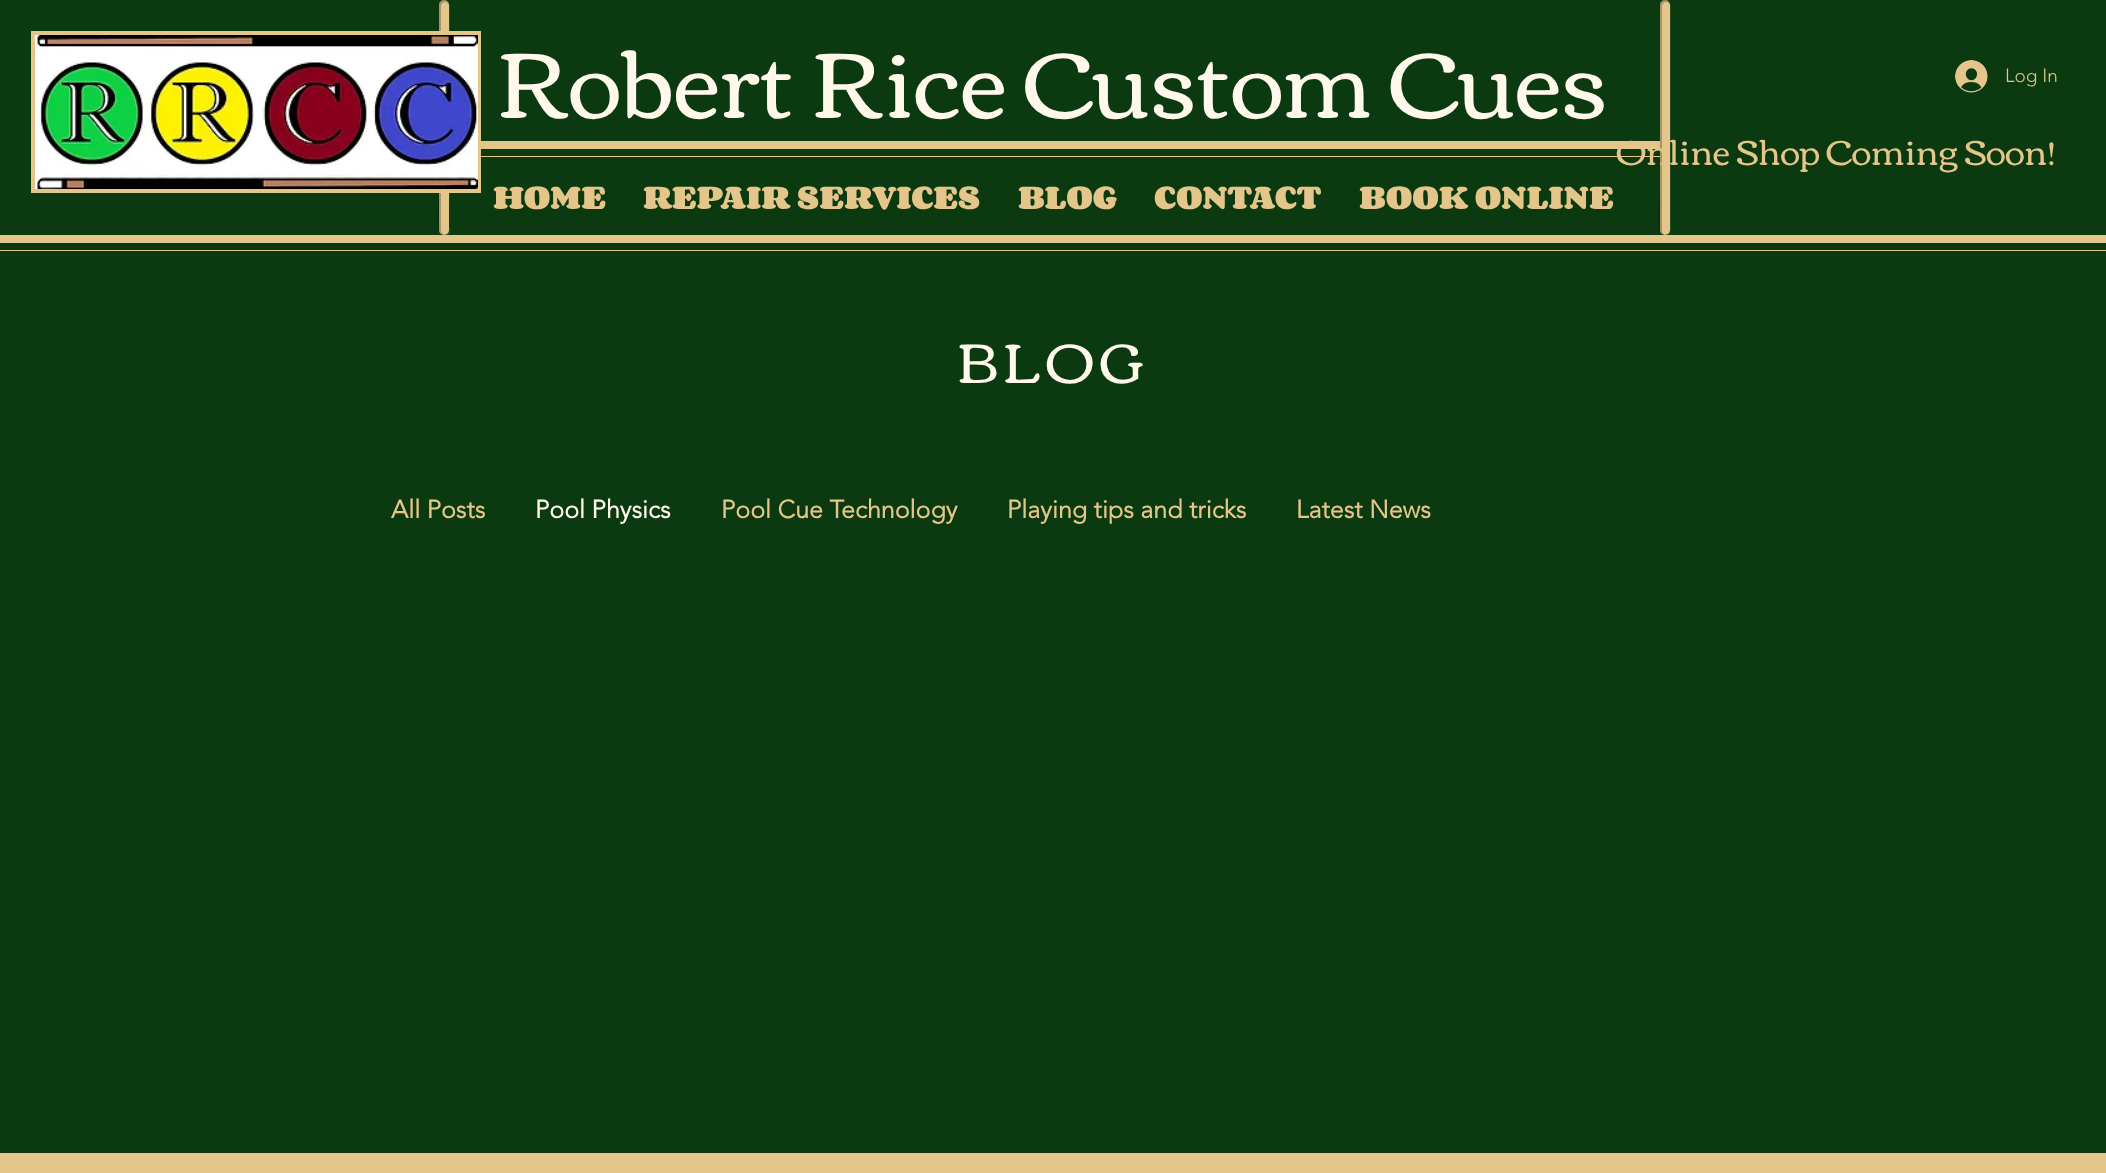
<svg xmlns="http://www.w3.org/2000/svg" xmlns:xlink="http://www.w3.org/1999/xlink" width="2106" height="1173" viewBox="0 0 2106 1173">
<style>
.cls-1{font:93.75px Corben;fill:#fff8eb}
.cls-2{font:bold 28.75px Corben;fill:#e4c58a}
.cls-3{font:300 19px 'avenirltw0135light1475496';fill:#e4c58a}
.cls-4{font:35px Corben;fill:#e4c58a}
.cls-5{font:56px Corben;letter-spacing:5.5px;fill:#fff8eb}
.cls-6{font:bold 25px 'avenirltw0135light1475496';fill:#e4c58a}
.cls-7{font:bold 25px 'avenirltw0135light1475496';fill:#fff8eb}
</style>
<rect width="100%" height="100%" fill="#0b3910"/>
<path fill="#234d28" d="M441 234C442 235 444 236 445 236C448 236 450 234 450 231V6C450 4 449 3 447 2L449 5V192C449 206 453 220 448 232C447 235 444 236 441 234Z"/>
<rect fill="#e4c58a" x="439" y="0" width="10" height="235" rx="5"/>
<path fill="#000000" fill-opacity="0.25" d="M445 2C447 2 449 4 449 6C449 1 443-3 440 2L439 5V192C439 205 433 236 445 235C443 235 441 233 441 231V6C441 4 443 2 445 2Z"/>
<rect fill="#e4c58a" x="481" y="141" width="1184" height="8"/>
<rect fill="#e4c58a" x="481" y="156" width="1184" height="1"/>
<path fill="#234d28" d="M1662 234C1665 238 1671 236 1671 231V5C1671 4 1670 3 1669 2C1670 3 1670 4 1670 5V230C1670 233 1668 235 1665 235C1664 235 1663 235 1662 234Z"/>
<rect fill="#e4c58a" x="1660" y="0" width="10" height="235" rx="5"/>
<path fill="#000000" fill-opacity="0.25" d="M1666 2C1668 2 1670 4 1670 6C1670 1 1664-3 1661 2L1660 5V192C1660 205 1654 236 1666 235C1664 235 1662 233 1662 231V6C1662 4 1664 2 1666 2Z"/>
<rect fill="#e4c58a" x="0" y="235" width="2106" height="8"/>
<rect fill="#e4c58a" x="0" y="250" width="2106" height="1"/>
<rect fill="#e4c58a" x="31" y="31" width="450" height="162"/>
<image xlink:href="image0.png" x="35" y="35" width="443" height="154"/>
<image xlink:href="image1.png" x="1955" y="60" width="33" height="33"/>
<rect fill="#e4c58a" x="0" y="1153" width="2106" height="20"/>
<text class="cls-1" x="497" y="118">Robert Rice Custom Cues</text>
<text class="cls-2" x="493" y="209">HOME</text>
<text class="cls-2" x="643" y="209">REPAIR SERVICES</text>
<text class="cls-2" x="1018" y="209">BLOG</text>
<text class="cls-2" x="1154" y="209">CONTACT</text>
<text class="cls-2" x="1359" y="209">BOOK ONLINE</text>
<text class="cls-3" x="2005" y="82">Log In</text>
<text class="cls-4" x="1616" y="165">Online Shop Coming Soon!</text>
<text class="cls-5" x="957" y="383">BLOG</text>
<text class="cls-6" x="391" y="518">All Posts</text>
<text class="cls-7" x="535" y="518">Pool Physics</text>
<text class="cls-6" x="721" y="518">Pool Cue Technology</text>
<text class="cls-6" x="1007" y="518">Playing tips and tricks</text>
<text class="cls-6" x="1296" y="518">Latest News</text>
</svg>
